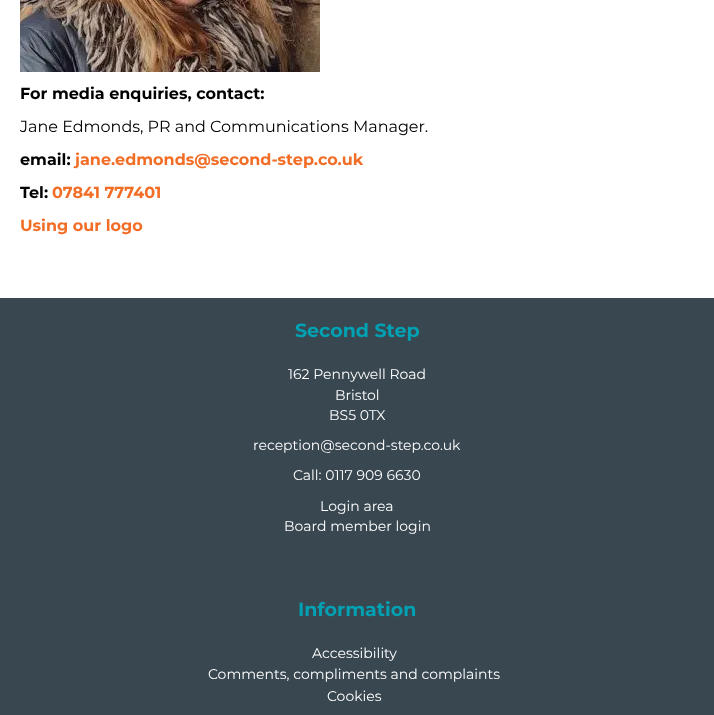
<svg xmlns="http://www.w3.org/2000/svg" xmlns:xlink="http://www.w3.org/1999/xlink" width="714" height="715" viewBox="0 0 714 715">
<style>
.cls-1{font:bold 16px Montserrat;fill:#000000}
.cls-2{font:16px Montserrat;fill:#000000}
.cls-3{font:bold 16px Montserrat;fill:#f26d25}
.cls-4{font:bold 19px Montserrat;fill:#00a1b3}
.cls-5{font:14px Montserrat;fill:#ffffff}
</style>
<rect width="100%" height="100%" fill="#ffffff"/>
<image xlink:href="image0.png" x="20" y="0" width="300" height="72"/>
<rect fill="#384750" x="0" y="298" width="714" height="417"/>
<text class="cls-1" x="20" y="99">For media enquiries, contact:</text>
<text class="cls-2" x="20" y="132">Jane Edmonds, PR and Communications Manager.</text>
<text class="cls-1" x="20" y="165">email:</text>
<text class="cls-3" x="75" y="165">jane.edmonds@second-step.co.uk</text>
<text class="cls-1" x="20" y="198">Tel:</text>
<text class="cls-3" x="52" y="198">07841 777401</text>
<text class="cls-3" x="20" y="231">Using our logo</text>
<text class="cls-4" x="295" y="337">Second Step</text>
<text class="cls-5" x="288" y="379">162 Pennywell Road</text>
<text class="cls-5" x="335" y="400">Bristol</text>
<text class="cls-5" x="329" y="420">BS5 0TX</text>
<text class="cls-5" x="253" y="450">reception@second-step.co.uk</text>
<text class="cls-5" x="293" y="480">Call: 0117 909 6630</text>
<text class="cls-5" x="320" y="511">Login area</text>
<text class="cls-5" x="284" y="531">Board member login</text>
<text class="cls-4" x="298" y="616">Information</text>
<text class="cls-5" x="312" y="658">Accessibility</text>
<text class="cls-5" x="208" y="679">Comments, compliments and complaints</text>
<text class="cls-5" x="327" y="701">Cookies</text>
</svg>
